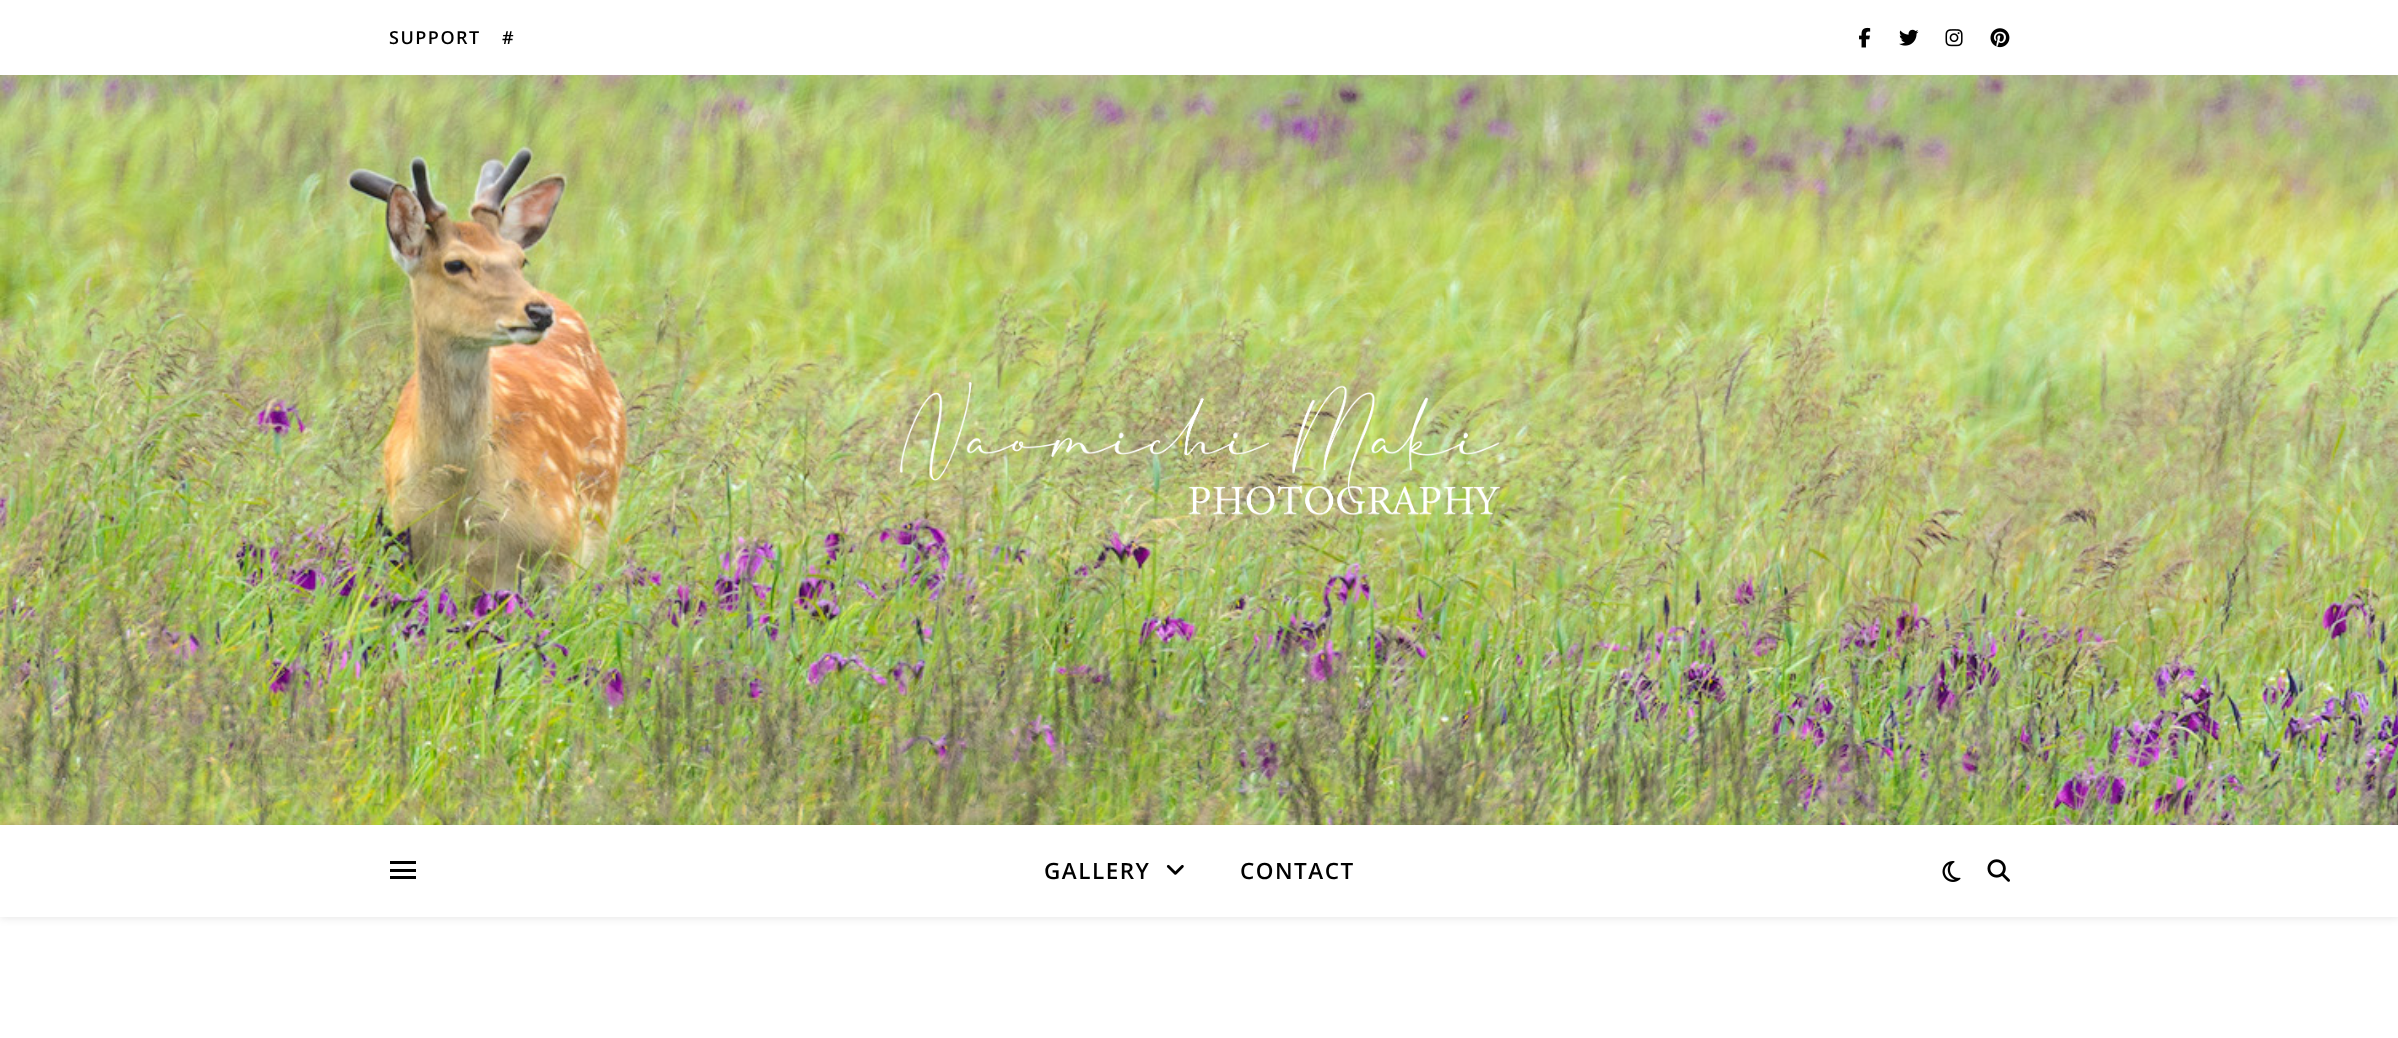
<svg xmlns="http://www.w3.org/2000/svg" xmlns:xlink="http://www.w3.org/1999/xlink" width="2398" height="1038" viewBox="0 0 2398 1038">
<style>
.cls-1{font:600 18px Open Sans;letter-spacing:1.5px;fill:#000000}
.cls-2{font:600 22.5px Open Sans;letter-spacing:1.5px;fill:#000000}
</style>
<rect width="100%" height="100%" fill="#ffffff"/>
<image xlink:href="image0.png" x="1859" y="27" width="12" height="21"/>
<image xlink:href="image1.png" x="1899" y="29" width="20" height="17"/>
<image xlink:href="image2.png" x="1945" y="29" width="18" height="18"/>
<image xlink:href="image3.png" x="1990" y="28" width="20" height="20"/>
<image xlink:href="image4.png" x="0" y="75" width="2398" height="750"/>
<image xlink:href="image5.png" x="900" y="382" width="600" height="134"/>
<rect fill="#000000" fill-opacity="0.1" filter="blur(4px)" x="0" y="827" width="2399" height="91"/>
<rect fill="#ffffff" x="0" y="825" width="2398" height="92"/>
<rect fill="#000000" x="390" y="861" width="26" height="3"/>
<rect fill="#000000" x="390" y="869" width="26" height="3"/>
<rect fill="#000000" x="390" y="876" width="26" height="3"/>
<image xlink:href="image6.png" x="1166" y="864" width="18" height="11"/>
<image xlink:href="image7.png" x="1942" y="861" width="19" height="21"/>
<image xlink:href="image8.png" x="1987" y="859" width="23" height="23"/>
<text class="cls-1" x="389" y="44">SUPPORT</text>
<text class="cls-1" x="502" y="44">#</text>
<text class="cls-2" x="1044" y="879">GALLERY</text>
<text class="cls-2" x="1240" y="879">CONTACT</text>
</svg>
